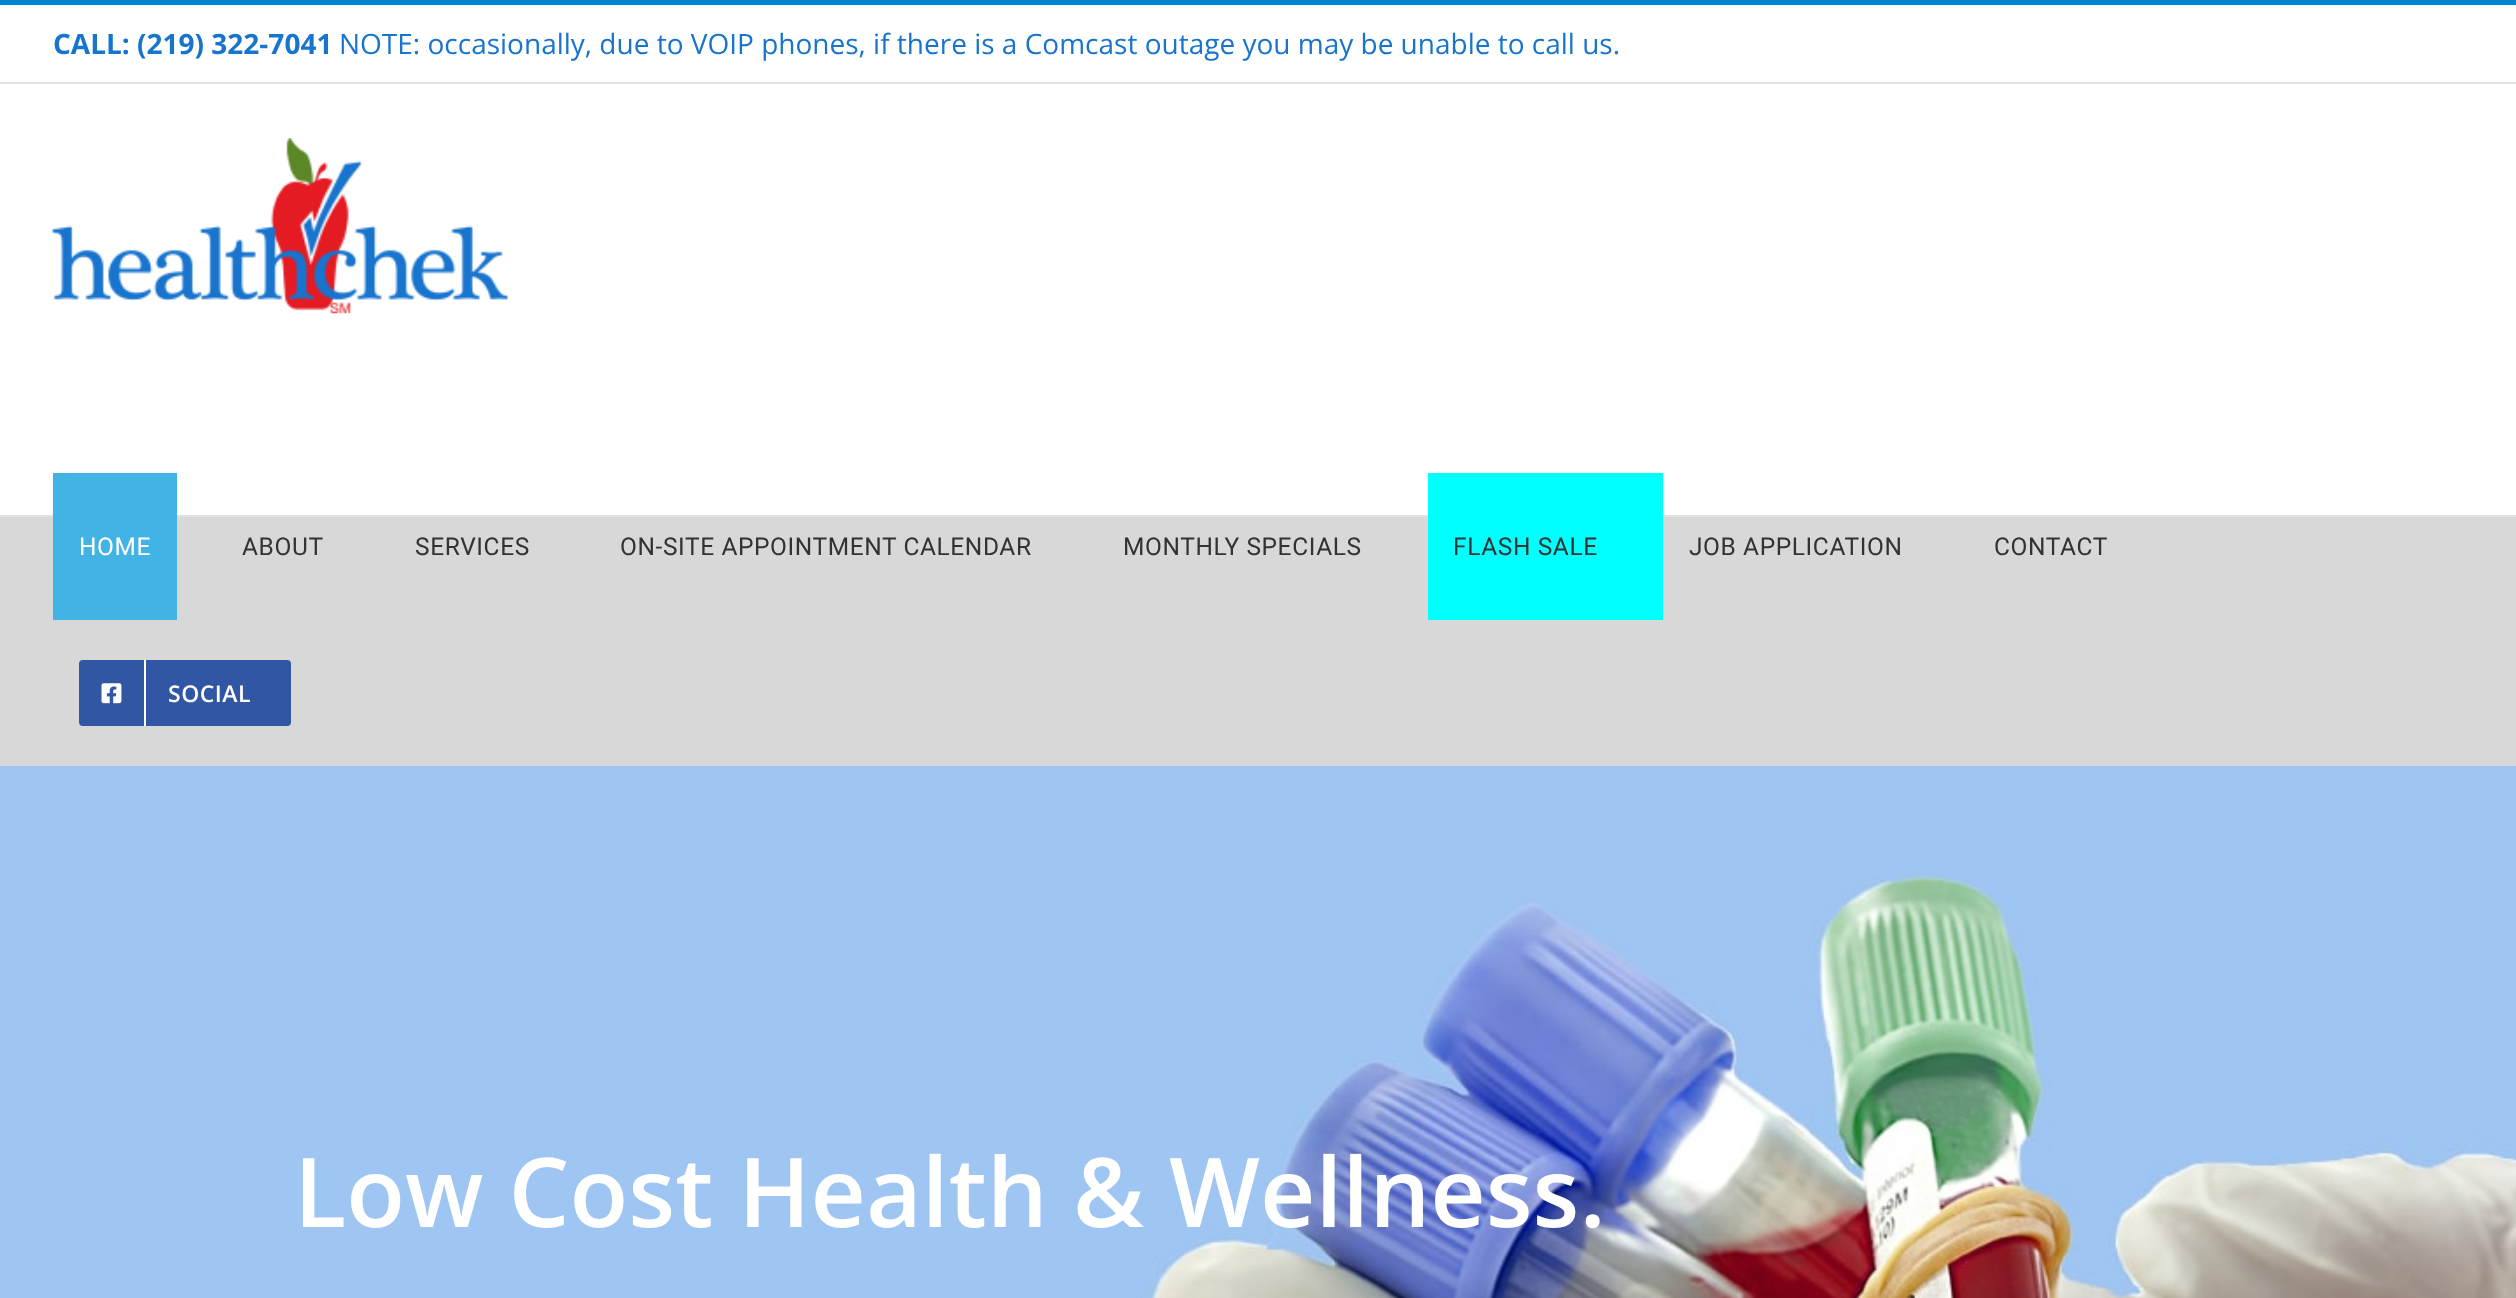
<svg xmlns="http://www.w3.org/2000/svg" xmlns:xlink="http://www.w3.org/1999/xlink" width="2516" height="1298" viewBox="0 0 2516 1298">
<style>
.cls-1{font:bold 28px Open Sans;fill:#1874cd}
.cls-2{font:28px Open Sans;fill:#1874cd}
.cls-3{font:24.5px Roboto;letter-spacing:0.6px;fill:#ffffff}
.cls-4{font:24.5px Roboto;letter-spacing:0.6px;fill:#333333}
.cls-5{font:600 23px Open Sans;letter-spacing:0.5px;fill:#ffffff}
.cls-6{font:600 96.25px Open Sans;fill:#ffffff}
</style>
<rect width="100%" height="100%" fill="#d8d8d8"/>
<rect fill="#ffffff" x="0" y="5" width="2516" height="77"/>
<rect fill="#0384ce" x="0" y="0" width="2516" height="5"/>
<rect fill="#e1e1e1" x="0" y="82" width="2516" height="2"/>
<rect fill="#ffffff" x="0" y="84" width="2516" height="431"/>
<rect fill="#e1e1e1" x="0" y="515" width="2516" height="2"/>
<image xlink:href="image0.png" x="52" y="138" width="456" height="176"/>
<rect fill="#42b3e5" x="53" y="473" width="124" height="147"/>
<rect fill="#00ffff" x="1428" y="473" width="235" height="147"/>
<rect fill="#3156a3" x="79" y="660" width="212" height="66" rx="4"/>
<rect fill="#ffffff" x="144" y="660" width="2" height="66"/>
<image xlink:href="image1.png" x="101" y="683" width="21" height="21"/>
<image xlink:href="image2.png" x="0" y="766" width="2516" height="532"/>
<text class="cls-1" x="53" y="54">CALL: (219) 322-7041</text>
<text class="cls-2" x="339" y="54">NOTE: occasionally, due to VOIP phones, if there is a Comcast outage you may be unable to call us.</text>
<text class="cls-3" x="79" y="555">HOME</text>
<text class="cls-4" x="242" y="555">ABOUT</text>
<text class="cls-4" x="415" y="555">SERVICES</text>
<text class="cls-4" x="620" y="555">ON-SITE APPOINTMENT CALENDAR</text>
<text class="cls-4" x="1123" y="555">MONTHLY SPECIALS</text>
<text class="cls-4" x="1453" y="555">FLASH SALE</text>
<text class="cls-4" x="1689" y="555">JOB APPLICATION</text>
<text class="cls-4" x="1994" y="555">CONTACT</text>
<text class="cls-5" x="168" y="702">SOCIAL</text>
<text class="cls-6" x="294" y="1227">Low Cost Health &amp; Wellness.</text>
</svg>
